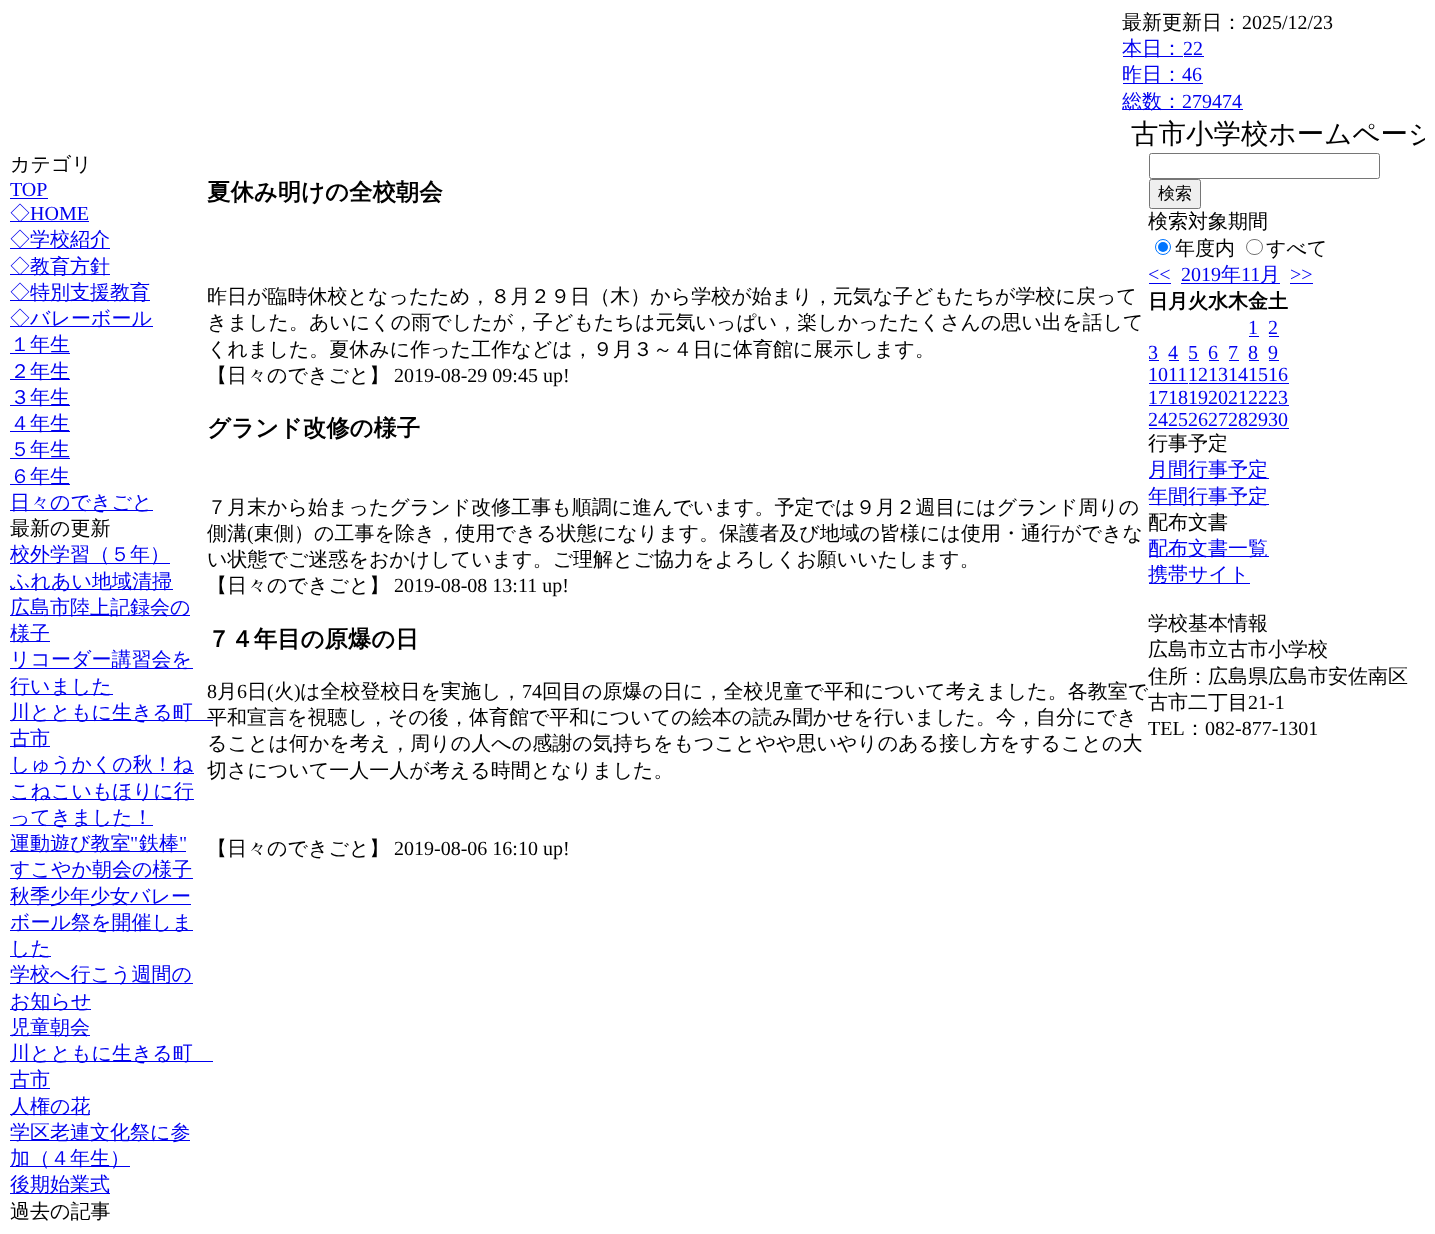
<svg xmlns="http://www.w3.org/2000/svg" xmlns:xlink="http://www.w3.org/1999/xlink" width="1435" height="1234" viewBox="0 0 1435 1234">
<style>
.cls-1{font:500 20px WenQuanYi Zen Hei;fill:#000000}
.cls-2{font:20px Liberation Serif;fill:#000000}
.cls-3{font:500 20px WenQuanYi Zen Hei;fill:#0000ee}
.cls-4{font:20px Liberation Serif;fill:#0000ee}
.cls-5{font:500 27.5px WenQuanYi Zen Hei;fill:#000000}
.cls-6{font:bold 23.4px WenQuanYi Zen Hei;fill:#000000}
.cls-7{font:500 17px WenQuanYi Zen Hei;fill:#000000}
.cls-8{font:bold 20px WenQuanYi Zen Hei;fill:#000000}
</style>
<defs>
<clipPath id="clip1"><rect x="10" y="115" width="1415" height="38"/></clipPath>
</defs>
<rect width="100%" height="100%" fill="#ffffff"/>
<rect fill="#0000ee" x="1123" y="56" width="60" height="1"/>
<rect fill="#0000ee" x="1184" y="56" width="20" height="1"/>
<rect fill="#0000ee" x="1123" y="83" width="80" height="1"/>
<rect fill="#0000ee" x="1123" y="109" width="120" height="1"/>
<rect fill="#0000ee" x="10" y="198" width="38" height="1"/>
<rect fill="#0000ee" x="10" y="221" width="79" height="1"/>
<rect fill="#0000ee" x="10" y="248" width="100" height="1"/>
<rect fill="#0000ee" x="10" y="274" width="100" height="1"/>
<rect fill="#0000ee" x="10" y="300" width="140" height="1"/>
<rect fill="#0000ee" x="10" y="326" width="143" height="1"/>
<rect fill="#0000ee" x="10" y="353" width="60" height="1"/>
<rect fill="#0000ee" x="10" y="379" width="60" height="1"/>
<rect fill="#0000ee" x="10" y="405" width="60" height="1"/>
<rect fill="#0000ee" x="10" y="431" width="60" height="1"/>
<rect fill="#0000ee" x="10" y="458" width="60" height="1"/>
<rect fill="#0000ee" x="10" y="484" width="60" height="1"/>
<rect fill="#0000ee" x="10" y="510" width="143" height="1"/>
<rect fill="#0000ee" x="10" y="563" width="160" height="1"/>
<rect fill="#0000ee" x="10" y="589" width="163" height="1"/>
<rect fill="#0000ee" x="10" y="615" width="180" height="1"/>
<rect fill="#0000ee" x="10" y="641" width="40" height="1"/>
<rect fill="#0000ee" x="10" y="668" width="183" height="1"/>
<rect fill="#0000ee" x="10" y="694" width="103" height="1"/>
<rect fill="#0000ee" x="10" y="720" width="203" height="1"/>
<rect fill="#0000ee" x="10" y="746" width="40" height="1"/>
<rect fill="#0000ee" x="10" y="773" width="184" height="1"/>
<rect fill="#0000ee" x="10" y="799" width="184" height="1"/>
<rect fill="#0000ee" x="10" y="825" width="143" height="1"/>
<rect fill="#0000ee" x="10" y="851" width="176" height="1"/>
<rect fill="#0000ee" x="10" y="878" width="183" height="1"/>
<rect fill="#0000ee" x="10" y="904" width="181" height="1"/>
<rect fill="#0000ee" x="10" y="930" width="183" height="1"/>
<rect fill="#0000ee" x="10" y="956" width="41" height="1"/>
<rect fill="#0000ee" x="10" y="983" width="183" height="1"/>
<rect fill="#0000ee" x="10" y="1009" width="81" height="1"/>
<rect fill="#0000ee" x="10" y="1035" width="80" height="1"/>
<rect fill="#0000ee" x="10" y="1061" width="203" height="1"/>
<rect fill="#0000ee" x="10" y="1088" width="40" height="1"/>
<rect fill="#0000ee" x="10" y="1114" width="80" height="1"/>
<rect fill="#0000ee" x="10" y="1140" width="180" height="1"/>
<rect fill="#0000ee" x="10" y="1166" width="120" height="1"/>
<rect fill="#0000ee" x="10" y="1193" width="100" height="1"/>
<rect fill="none" stroke="#767676" x="1149.5" y="153.5" width="230" height="25" rx="2"/>
<rect fill="#efefef" stroke="#767676" x="1149.5" y="179.5" width="51" height="29" rx="2"/>
<circle fill="none" stroke="#0075ff" cx="1163" cy="247" r="7.5"/>
<circle fill="#0075ff" cx="1163" cy="247" r="5"/>
<rect fill="none" stroke="#767676" x="1246.5" y="239.5" width="16" height="15" rx="7.5"/>
<rect fill="#0000ee" x="1149" y="283" width="22" height="1"/>
<rect fill="#0000ee" x="1181" y="283" width="99" height="1"/>
<rect fill="#0000ee" x="1290" y="283" width="23" height="1"/>
<rect fill="#0000ee" x="1249" y="336" width="10" height="1"/>
<rect fill="#0000ee" x="1269" y="336" width="10" height="1"/>
<rect fill="#0000ee" x="1149" y="360" width="10" height="1"/>
<rect fill="#0000ee" x="1169" y="360" width="10" height="1"/>
<rect fill="#0000ee" x="1189" y="360" width="10" height="1"/>
<rect fill="#0000ee" x="1209" y="360" width="10" height="1"/>
<rect fill="#0000ee" x="1229" y="360" width="10" height="1"/>
<rect fill="#0000ee" x="1249" y="360" width="10" height="1"/>
<rect fill="#0000ee" x="1269" y="360" width="10" height="1"/>
<rect fill="#0000ee" x="1149" y="383" width="39" height="1"/>
<rect fill="#0000ee" x="1189" y="383" width="100" height="1"/>
<rect fill="#0000ee" x="1149" y="405" width="140" height="1"/>
<rect fill="#0000ee" x="1149" y="428" width="140" height="1"/>
<rect fill="#0000ee" x="1149" y="478" width="120" height="1"/>
<rect fill="#0000ee" x="1149" y="504" width="120" height="1"/>
<rect fill="#0000ee" x="1149" y="556" width="120" height="1"/>
<rect fill="#0000ee" x="1149" y="583" width="101" height="1"/>
<text class="cls-1" x="1122" y="29">最新更新日：</text>
<text class="cls-2" x="1242" y="29">2025/12/23</text>
<text class="cls-3" x="1122" y="55">本日：</text>
<text class="cls-4" x="1183" y="55">22</text>
<text class="cls-3" x="1122" y="81">昨日：</text>
<text class="cls-4" x="1182" y="81">46</text>
<text class="cls-3" x="1122" y="108">総数：</text>
<text class="cls-4" x="1182" y="108">279474</text>
<g clip-path="url(#clip1)">
<text class="cls-5" x="1131" y="143">古市小学校ホームページ</text>
</g>
<text class="cls-1" x="10" y="171">カテゴリ</text>
<text class="cls-4" x="10" y="196">TOP</text>
<text class="cls-3" x="10" y="220">◇</text>
<text class="cls-4" x="30" y="220">HOME</text>
<text class="cls-3"><tspan x="10" y="246">◇学校紹介</tspan><tspan x="10" y="273">◇教育方針</tspan><tspan x="10" y="299">◇特別支援教育</tspan><tspan x="10" y="325">◇バレーボール</tspan><tspan x="10" y="351">１年生</tspan><tspan x="10" y="378">２年生</tspan><tspan x="10" y="404">３年生</tspan><tspan x="10" y="430">４年生</tspan><tspan x="10" y="456">５年生</tspan><tspan x="10" y="483">６年生</tspan><tspan x="10" y="509">日々のできごと</tspan></text>
<text class="cls-1" x="10" y="535">最新の更新</text>
<text class="cls-3"><tspan x="10" y="561">校外学習（５年）</tspan><tspan x="10" y="588">ふれあい地域清掃</tspan><tspan x="10" y="614">広島市陸上記録会の</tspan><tspan x="10" y="640">様子</tspan><tspan x="10" y="666">リコーダー講習会を</tspan><tspan x="10" y="693">行いました</tspan><tspan x="10" y="719">川とともに生きる町</tspan><tspan x="10" y="745">古市</tspan><tspan x="10" y="771">しゅうかくの秋！ね</tspan><tspan x="10" y="798">こねこいもほりに行</tspan><tspan x="10" y="824">ってきました！</tspan><tspan x="10" y="850">運動遊び教室</tspan></text>
<text class="cls-4" x="130" y="850">"</text>
<text class="cls-3" x="139" y="850">鉄棒</text>
<text class="cls-4" x="179" y="850">"</text>
<text class="cls-3"><tspan x="10" y="876">すこやか朝会の様子</tspan><tspan x="10" y="903">秋季少年少女バレー</tspan><tspan x="10" y="929">ボール祭を開催しま</tspan><tspan x="10" y="955">した</tspan><tspan x="10" y="981">学校へ行こう週間の</tspan><tspan x="10" y="1008">お知らせ</tspan><tspan x="10" y="1034">児童朝会</tspan><tspan x="10" y="1060">川とともに生きる町</tspan><tspan x="10" y="1086">古市</tspan><tspan x="10" y="1113">人権の花</tspan><tspan x="10" y="1139">学区老連文化祭に参</tspan><tspan x="10" y="1165">加（４年生）</tspan><tspan x="10" y="1191">後期始業式</tspan></text>
<text class="cls-1" x="10" y="1218">過去の記事</text>
<text class="cls-6" x="207" y="200">夏休み明けの全校朝会</text>
<text class="cls-1"><tspan x="207" y="303">昨日が臨時休校となったため，８月２９日（木）から学校が始まり，元気な子どもたちが学校に戻って</tspan><tspan x="207" y="329">きました。あいにくの雨でしたが，子どもたちは元気いっぱい，楽しかったたくさんの思い出を話して</tspan><tspan x="207" y="356">くれました。夏休みに作った工作などは，９月３～４日に体育館に展示します。</tspan><tspan x="207" y="382">【日々のできごと】</tspan></text>
<text class="cls-2" x="394" y="382">2019-08-29 09:45 up!</text>
<text class="cls-6" x="207" y="436">グランド改修の様子</text>
<text class="cls-1"><tspan x="207" y="514">７月末から始まったグランド改修工事も順調に進んでいます。予定では９月２週目にはグランド周りの</tspan><tspan x="207" y="540">側溝</tspan></text>
<text class="cls-2" x="247" y="540">(</text>
<text class="cls-1" x="254" y="540">東側）の工事を除き，使用できる状態になります。保護者及び地域の皆様には使用・通行ができな</text>
<text class="cls-1"><tspan x="207" y="566">い状態でご迷惑をおかけしています。ご理解とご協力をよろしくお願いいたします。</tspan><tspan x="207" y="592">【日々のできごと】</tspan></text>
<text class="cls-2" x="394" y="592">2019-08-08 13:11 up!</text>
<text class="cls-6" x="207" y="647">７４年目の原爆の日</text>
<text class="cls-2" x="207" y="698">8</text>
<text class="cls-1" x="217" y="698">月</text>
<text class="cls-2" x="237" y="698">6</text>
<text class="cls-1" x="247" y="698">日</text>
<text class="cls-2" x="267" y="698">(</text>
<text class="cls-1" x="274" y="698">火</text>
<text class="cls-2" x="294" y="698">)</text>
<text class="cls-1" x="300" y="698">は全校登校日を実施し，</text>
<text class="cls-2" x="522" y="698">74</text>
<text class="cls-1" x="542" y="698">回目の原爆の日に，全校児童で平和について考えました。各教室で</text>
<text class="cls-1"><tspan x="207" y="724">平和宣言を視聴し，その後，体育館で平和についての絵本の読み聞かせを行いました。今，自分にでき</tspan><tspan x="207" y="750">ることは何かを考え，周りの人への感謝の気持ちをもつことやや思いやりのある接し方をすることの大</tspan><tspan x="207" y="777">切さについて一人一人が考える時間となりました。</tspan></text>
<text class="cls-1" x="207" y="855">【日々のできごと】</text>
<text class="cls-2" x="394" y="855">2019-08-06 16:10 up!</text>
<text class="cls-7" x="1158" y="199">検索</text>
<text class="cls-1" x="1148" y="228">検索対象期間</text>
<text class="cls-1" x="1175" y="255">年度内</text>
<text class="cls-1" x="1266" y="255">すべて</text>
<text class="cls-4" x="1148" y="281">&lt;&lt;</text>
<text class="cls-4" x="1181" y="281">2019</text>
<text class="cls-3" x="1221" y="281">年</text>
<text class="cls-4" x="1241" y="281">11</text>
<text class="cls-3" x="1260" y="281">月</text>
<text class="cls-4" x="1290" y="281">&gt;&gt;</text>
<text class="cls-8" x="1148" y="308">日月火水木金土</text>
<text class="cls-4" x="1248" y="334">1</text>
<text class="cls-4" x="1268" y="334">2</text>
<text class="cls-4" x="1148" y="359">3</text>
<text class="cls-4" x="1168" y="359">4</text>
<text class="cls-4" x="1188" y="359">5</text>
<text class="cls-4" x="1208" y="359">6</text>
<text class="cls-4" x="1228" y="359">7</text>
<text class="cls-4" x="1248" y="359">8</text>
<text class="cls-4" x="1268" y="359">9</text>
<text class="cls-4" x="1148" y="381">1011</text>
<text class="cls-4" x="1188" y="381">1213141516</text>
<text class="cls-4"><tspan x="1148" y="404">17181920212223</tspan><tspan x="1148" y="426">24252627282930</tspan></text>
<text class="cls-1" x="1148" y="450">行事予定</text>
<text class="cls-3"><tspan x="1148" y="476">月間行事予定</tspan><tspan x="1148" y="503">年間行事予定</tspan></text>
<text class="cls-1" x="1148" y="529">配布文書</text>
<text class="cls-3"><tspan x="1148" y="555">配布文書一覧</tspan><tspan x="1148" y="581">携帯サイト</tspan></text>
<text class="cls-1"><tspan x="1148" y="630">学校基本情報</tspan><tspan x="1148" y="656">広島市立古市小学校</tspan><tspan x="1148" y="683">住所：広島県広島市安佐南区</tspan><tspan x="1148" y="709">古市二丁目</tspan></text>
<text class="cls-2" x="1248" y="709">21-1</text>
<text class="cls-2" x="1148" y="735">TEL</text>
<text class="cls-1" x="1185" y="735">：</text>
<text class="cls-2" x="1205" y="735">082-877-1301</text>
</svg>
